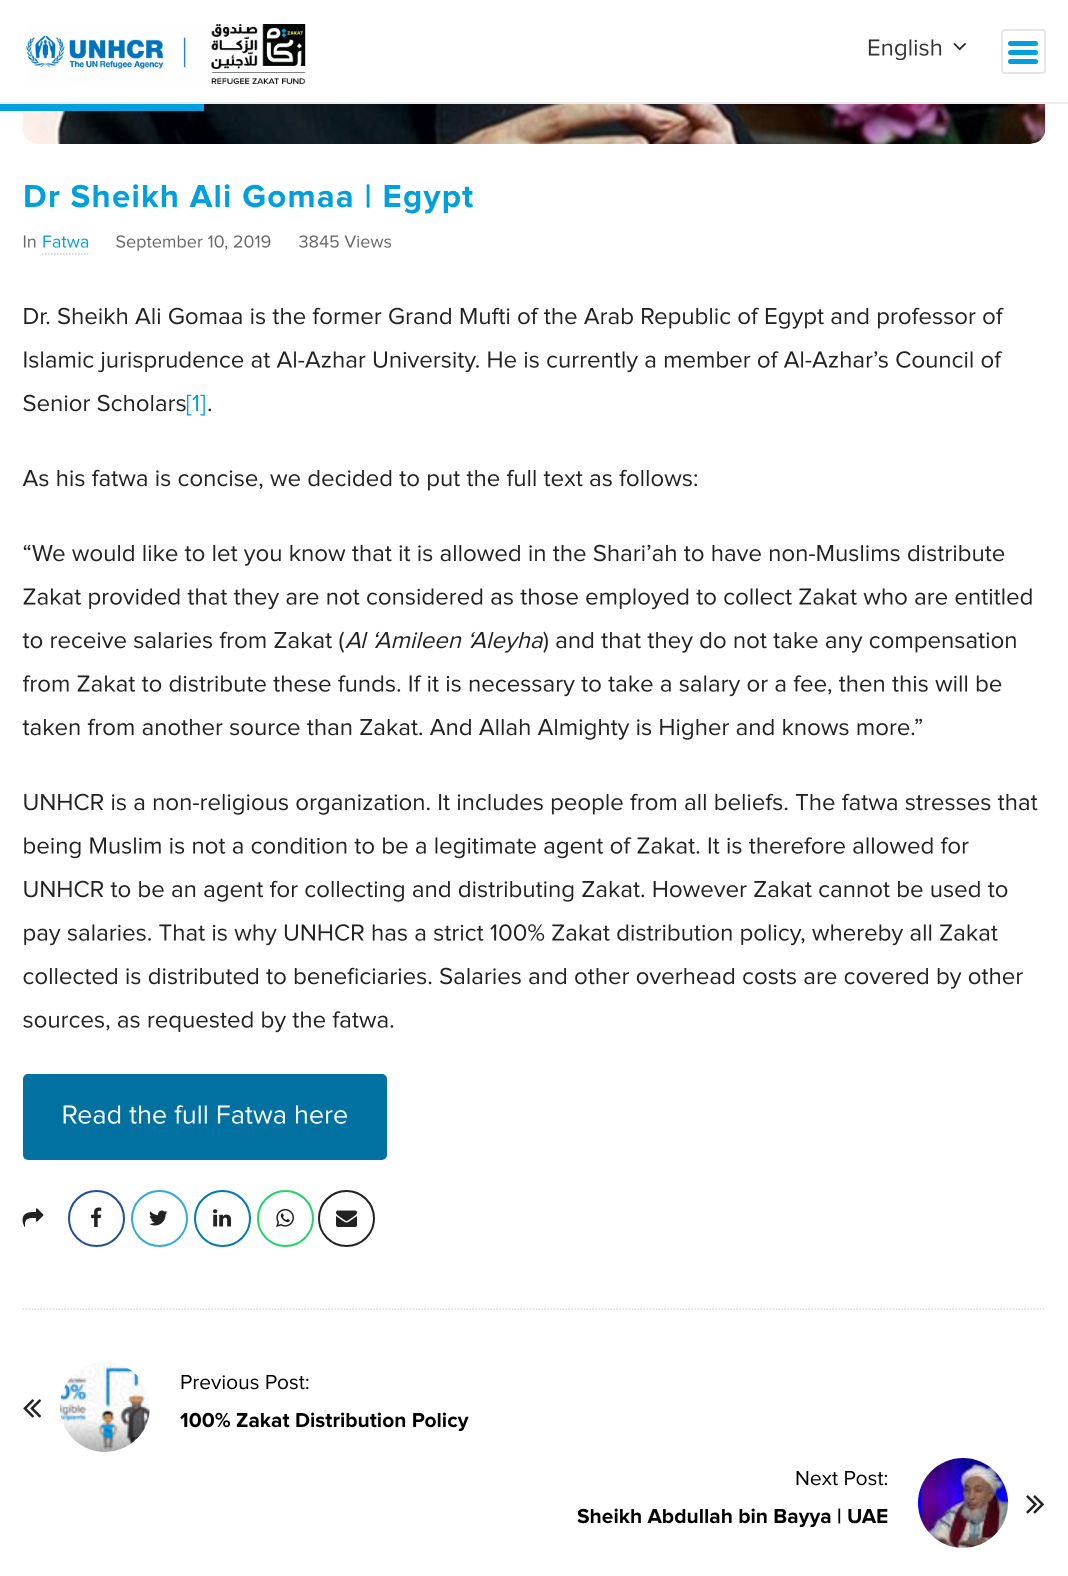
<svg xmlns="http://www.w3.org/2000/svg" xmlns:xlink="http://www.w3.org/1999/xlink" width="1068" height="1576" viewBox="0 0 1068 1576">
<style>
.cls-1{font:bold 33px Proxima Nova;letter-spacing:1.2px;fill:#00a0df}
.cls-2{font:bold 21px Proxima Nova;fill:#000000}
</style>
<rect width="100%" height="100%" fill="#ffffff"/>
<rect fill="#eeeeee" x="0" y="102" width="1068" height="2"/>
<image xlink:href="image0.png" x="26" y="24" width="280" height="60"/>
<image xlink:href="image1.png" x="868" y="39" width="74" height="21"/>
<image xlink:href="image2.png" x="953" y="43" width="13" height="8"/>
<rect fill="none" stroke="#e6e6e6" stroke-width="2" x="1002" y="30" width="43" height="43" rx="3"/>
<rect fill="#00a0df" x="1008" y="41" width="30" height="5" rx="2.5"/>
<rect fill="#00a0df" x="1008" y="50" width="30" height="5" rx="2.5"/>
<rect fill="#00a0df" x="1008" y="59" width="30" height="5" rx="2.5"/>
<image xlink:href="image3.png" x="22" y="104" width="1024" height="40"/>
<rect fill="#00a0df" x="0" y="104" width="204" height="7"/>
<path fill="none" stroke="#dddddd" stroke-width="1.5" stroke-dasharray="1.5 1.5" d="M22.5 1309H1045.5"/>
<image xlink:href="image4.png" x="23" y="235" width="13" height="13"/>
<image xlink:href="image5.png" x="43" y="235" width="46" height="13"/>
<path fill="none" stroke="#cccccc" stroke-width="1.5" stroke-dasharray="1.5 1.5" d="M42 254H88.5"/>
<image xlink:href="image6.png" x="116" y="235" width="155" height="16"/>
<image xlink:href="image7.png" x="299" y="235" width="93" height="13"/>
<image xlink:href="image8.png" x="24" y="307" width="980" height="22"/>
<image xlink:href="image9.png" x="24" y="351" width="979" height="22"/>
<image xlink:href="image10.png" x="23" y="394" width="163" height="18"/>
<image xlink:href="image11.png" x="186" y="394" width="19" height="22"/>
<image xlink:href="image12.png" x="208" y="408" width="4" height="4"/>
<image xlink:href="image13.png" x="22" y="469" width="675" height="22"/>
<image xlink:href="image14.png" x="23" y="544" width="982" height="22"/>
<image xlink:href="image15.png" x="23" y="588" width="1009" height="22"/>
<image xlink:href="image16.png" x="22" y="631" width="322" height="22"/>
<image xlink:href="image17.png" x="345" y="632" width="16" height="16"/>
<image xlink:href="image18.png" x="361" y="631" width="182" height="22"/>
<image xlink:href="image19.png" x="543" y="631" width="473" height="22"/>
<image xlink:href="image20.png" x="22" y="675" width="980" height="22"/>
<image xlink:href="image21.png" x="22" y="718" width="900" height="22"/>
<image xlink:href="image22.png" x="24" y="793" width="1014" height="22"/>
<image xlink:href="image23.png" x="24" y="837" width="945" height="22"/>
<image xlink:href="image24.png" x="24" y="880" width="984" height="22"/>
<image xlink:href="image25.png" x="24" y="924" width="974" height="22"/>
<image xlink:href="image26.png" x="23" y="967" width="1000" height="22"/>
<image xlink:href="image27.png" x="23" y="1011" width="371" height="22"/>
<rect fill="#0071a1" x="23" y="1074" width="364" height="86" rx="5"/>
<image xlink:href="image28.png" x="63" y="1105" width="284" height="19"/>
<image xlink:href="image29.png" x="22" y="1208" width="22" height="19"/>
<circle fill="none" stroke="#234e9a" stroke-width="2" cx="96.5" cy="1218.5" r="27.5"/>
<image xlink:href="image30.png" x="91" y="1207" width="11" height="20"/>
<circle fill="none" stroke="#32aadc" stroke-width="2" cx="159.5" cy="1218.5" r="27.5"/>
<image xlink:href="image31.png" x="149" y="1210" width="19" height="16"/>
<circle fill="none" stroke="#007bb5" stroke-width="2" cx="222.5" cy="1218.5" r="27.5"/>
<image xlink:href="image32.png" x="213" y="1209" width="18" height="18"/>
<circle fill="none" stroke="#25d366" stroke-width="2" cx="285.5" cy="1218.5" r="27.5"/>
<image xlink:href="image33.png" x="276" y="1208" width="18" height="19"/>
<circle fill="none" stroke="#222222" stroke-width="2" cx="346.5" cy="1218.5" r="27.5"/>
<image xlink:href="image34.png" x="336" y="1210" width="21" height="17"/>
<image xlink:href="image35.png" x="23" y="1399" width="19" height="19"/>
<image xlink:href="image36.png" x="60" y="1362" width="90" height="90"/>
<image xlink:href="image37.png" x="181" y="1375" width="128" height="15"/>
<image xlink:href="image38.png" x="918" y="1458" width="90" height="90"/>
<image xlink:href="image39.png" x="1026" y="1495" width="18" height="19"/>
<image xlink:href="image40.png" x="796" y="1471" width="92" height="15"/>
<text class="cls-1" x="23" y="207">Dr Sheikh Ali Gomaa | Egypt</text>
<text class="cls-2" x="180" y="1427">100% Zakat Distribution Policy</text>
<text class="cls-2" x="577" y="1523">Sheikh Abdullah bin Bayya | UAE</text>
</svg>
